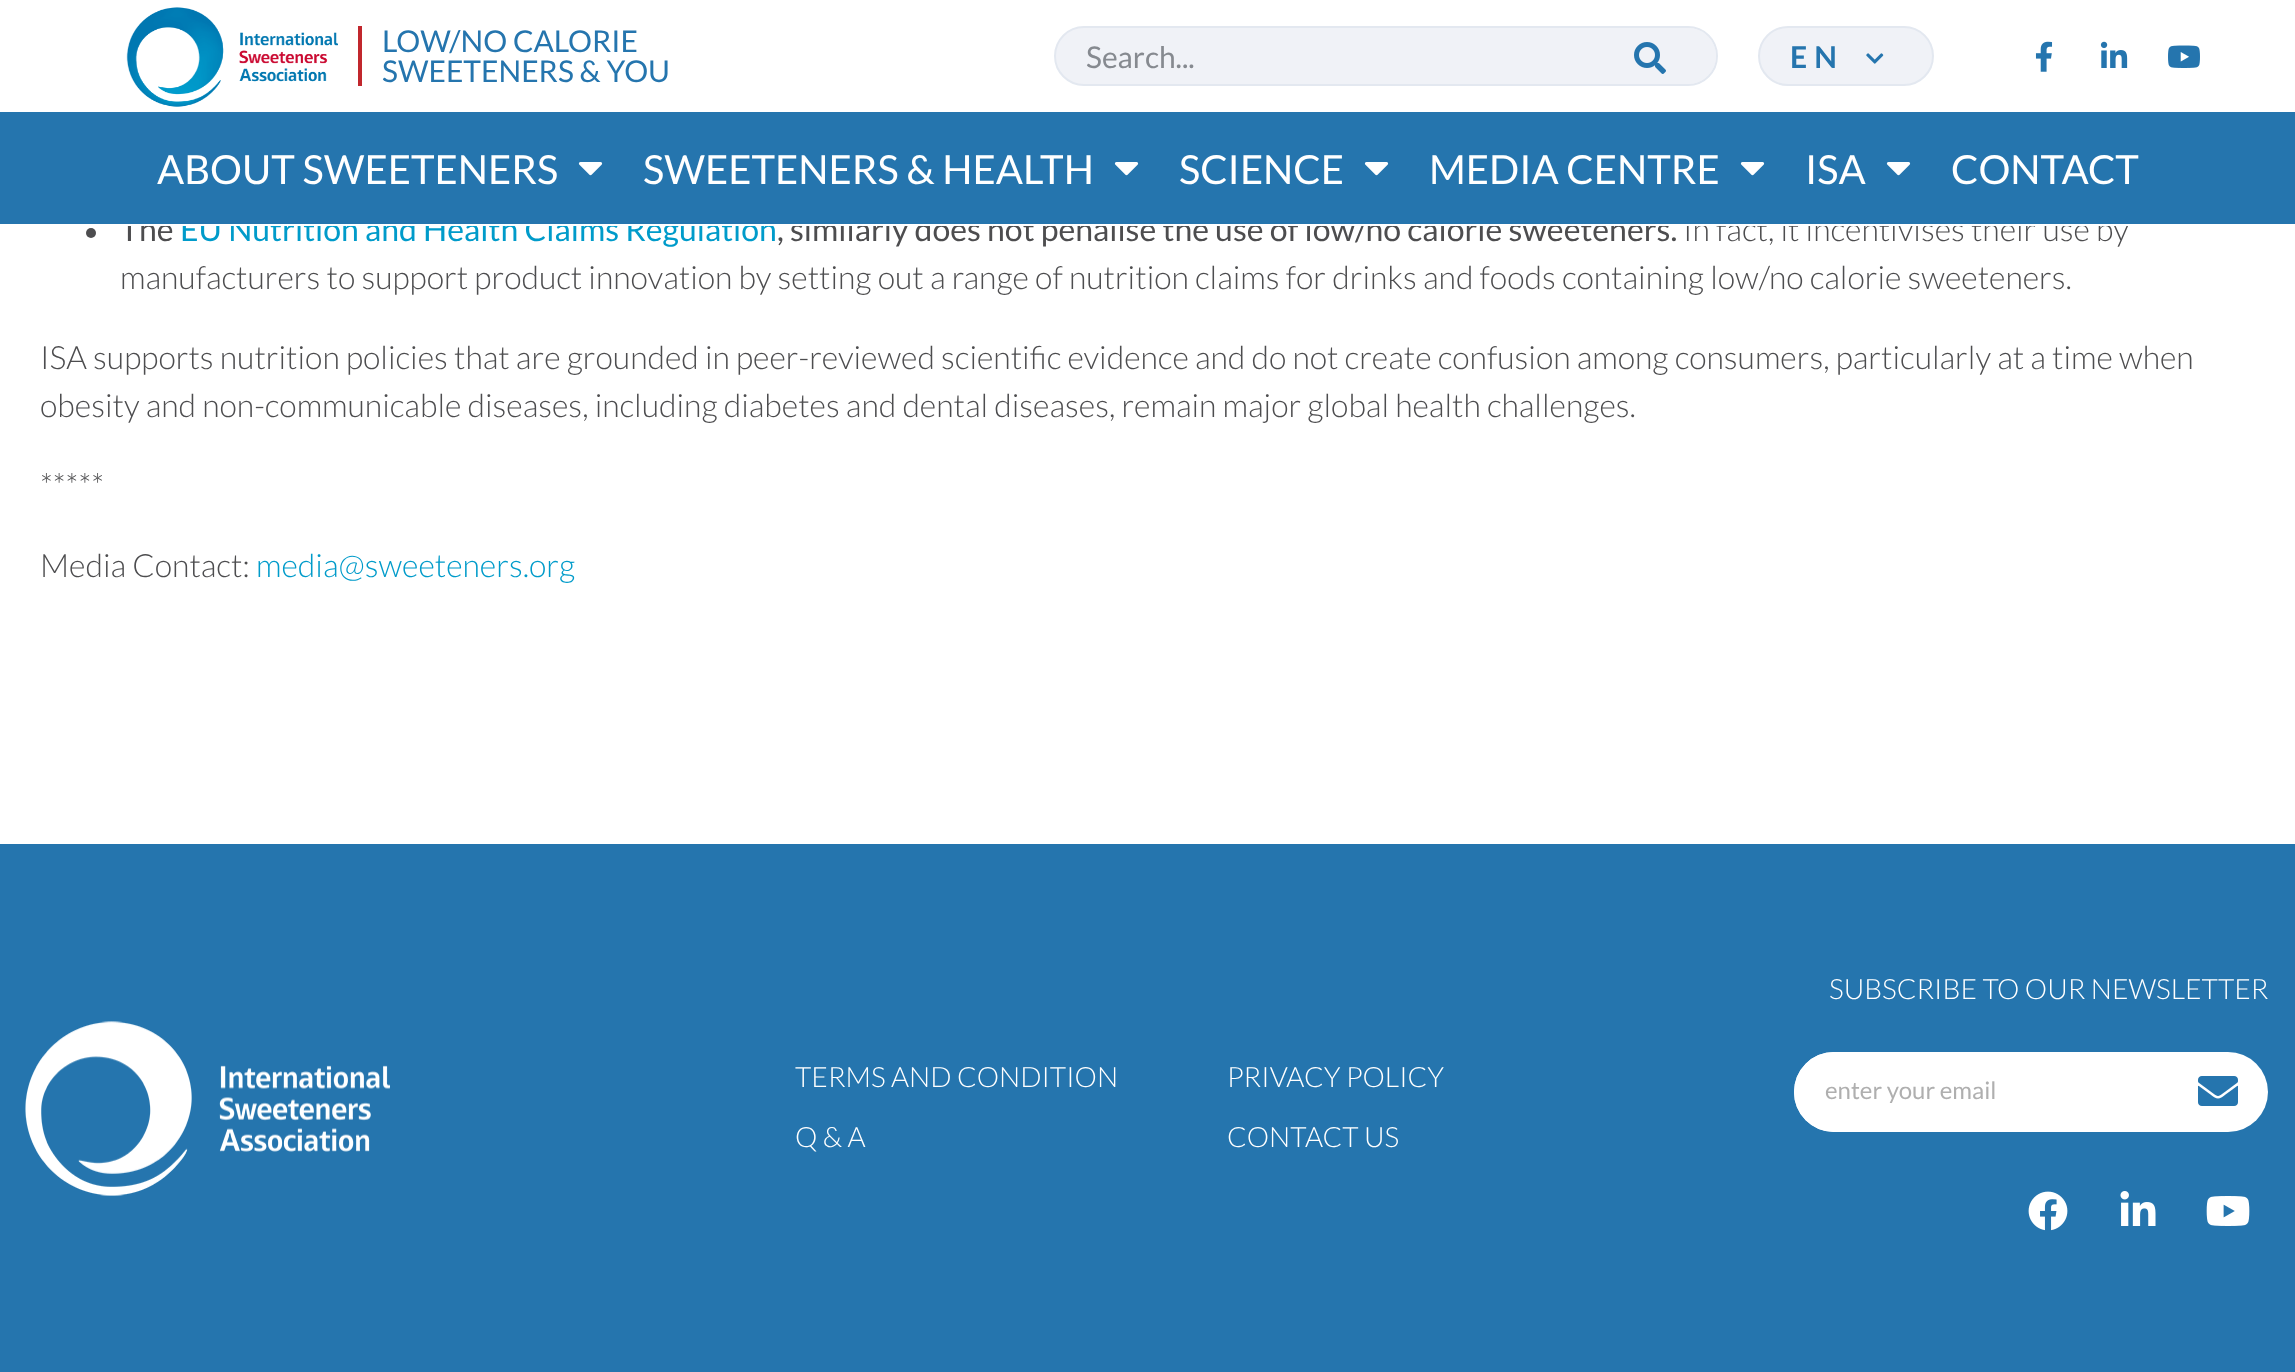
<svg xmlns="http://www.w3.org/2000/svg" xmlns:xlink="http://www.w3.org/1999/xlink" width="2295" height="1372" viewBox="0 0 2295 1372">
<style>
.cls-1{font:30px Lato;fill:#2575ae}
.cls-2{font:30px Lato;fill:#868a90}
.cls-3{font:bold 30px Lato;letter-spacing:7px;fill:#2575ae}
.cls-4{font:32px Lato;fill:#4d4d4f}
.cls-5{font:32px Lato;fill:#009bca}
.cls-6{font:300 32px Lato;fill:#4d4d4f}
.cls-7{font:40px Lato;fill:#ffffff}
.cls-8{font:300 32px Lato;fill:#009bca}
.cls-9{font:300 28px Lato;fill:#ffffff}
.cls-10{font:24px Lato;fill:#afafaf}
</style>
<rect width="100%" height="100%" fill="#ffffff"/>
<image xlink:href="image0.png" x="126" y="7" width="212" height="100"/>
<rect fill="#c1272d" x="358" y="26" width="4" height="60"/>
<rect fill="#f0f2f7" stroke="#e3e8f0" stroke-width="2" x="1055" y="27" width="662" height="58" rx="29"/>
<path fill="#f0f2f7" d="M1590 28H1688C1703.5 28 1716 40.5 1716 56C1716 71.5 1703.5 84 1688 84H1590Z"/>
<image xlink:href="image1.png" x="1634" y="42" width="32" height="32"/>
<rect fill="#f0f2f7" stroke="#e3e8f0" stroke-width="2" x="1759" y="27" width="174" height="58" rx="29"/>
<image xlink:href="image2.png" x="1866" y="53" width="18" height="11"/>
<image xlink:href="image3.png" x="2035" y="41" width="18" height="31"/>
<image xlink:href="image4.png" x="2100" y="41" width="28" height="27"/>
<image xlink:href="image5.png" x="2168" y="45" width="32" height="23"/>
<circle fill="#4d4d4f" cx="91" cy="233" r="5"/>
<rect fill="#2575ae" x="0" y="844" width="2295" height="528"/>
<image xlink:href="image7.png" x="25" y="1021" width="365" height="175"/>
<rect fill="#ffffff" x="1794" y="1052" width="474" height="80" rx="40"/>
<path fill="#ffffff" stroke="#ffffff" stroke-width="10" d="M1834 1057H2169V1127H1834C1814.5 1127 1799 1111.5 1799 1092C1799 1072.5 1814.5 1057 1834 1057Z"/>
<image xlink:href="image8.png" x="2198" y="1076" width="40" height="30"/>
<image xlink:href="image9.png" x="2028" y="1191" width="40" height="40"/>
<image xlink:href="image10.png" x="2120" y="1191" width="36" height="35"/>
<image xlink:href="image11.png" x="2206" y="1196" width="44" height="30"/>
<text class="cls-1"><tspan x="382" y="52">LOW/NO CALORIE</tspan><tspan x="382" y="82">SWEETENERS &amp; YOU</tspan></text>
<text class="cls-2" x="1086" y="68">Search...</text>
<text class="cls-3" x="1790" y="68">EN</text>
<text class="cls-4" x="120" y="241">The</text>
<text class="cls-5" x="180" y="241">EU Nutrition and Health Claims Regulation</text>
<text class="cls-4" x="777" y="241">, similarly does not penalise the use of low/no calorie sweeteners.</text>
<text class="cls-6" x="1683" y="241">In fact, it incentivises their use by</text>
<rect fill="#2575ae" x="0" y="112" width="2295" height="112"/>
<text class="cls-7" x="1951" y="184">CONTACT</text>
<image xlink:href="image6.png" x="1886" y="162" width="25" height="14"/>
<text class="cls-7" x="1805" y="184">ISA</text>
<image xlink:href="image6.png" x="1740" y="162" width="25" height="14"/>
<text class="cls-7" x="1429" y="184">MEDIA CENTRE</text>
<image xlink:href="image6.png" x="1364" y="162" width="25" height="14"/>
<text class="cls-7" x="1179" y="184">SCIENCE</text>
<image xlink:href="image6.png" x="1114" y="162" width="25" height="14"/>
<text class="cls-7" x="643" y="184">SWEETENERS &amp; HEALTH</text>
<image xlink:href="image6.png" x="578" y="162" width="25" height="14"/>
<text class="cls-7" x="157" y="184">ABOUT SWEETENERS</text>
<rect fill="#ffffff" x="127" y="224" width="2002" height="2"/>
<text class="cls-6" x="120" y="289">manufacturers to support product innovation by setting out a range of nutrition claims for drinks and foods containing low/no calorie sweeteners.</text>
<text class="cls-6"><tspan x="40" y="369">ISA supports nutrition policies that are grounded in peer-reviewed scientific evidence and do not create confusion among consumers, particularly at a time when</tspan><tspan x="40" y="417">obesity and non-communicable diseases, including diabetes and dental diseases, remain major global health challenges.</tspan></text>
<text class="cls-6" x="40" y="497">*****</text>
<text class="cls-6" x="40" y="577">Media Contact:</text>
<text class="cls-8" x="256" y="577">media@sweeteners.org</text>
<text class="cls-9" x="795" y="1087">TERMS AND CONDITION</text>
<text class="cls-9" x="1227" y="1087">PRIVACY POLICY</text>
<text class="cls-9" x="795" y="1147">Q &amp; A</text>
<text class="cls-9" x="1227" y="1147">CONTACT US</text>
<text class="cls-9" x="1829" y="999">SUBSCRIBE TO OUR NEWSLETTER</text>
<text class="cls-10" x="1825" y="1099">enter your email</text>
</svg>
